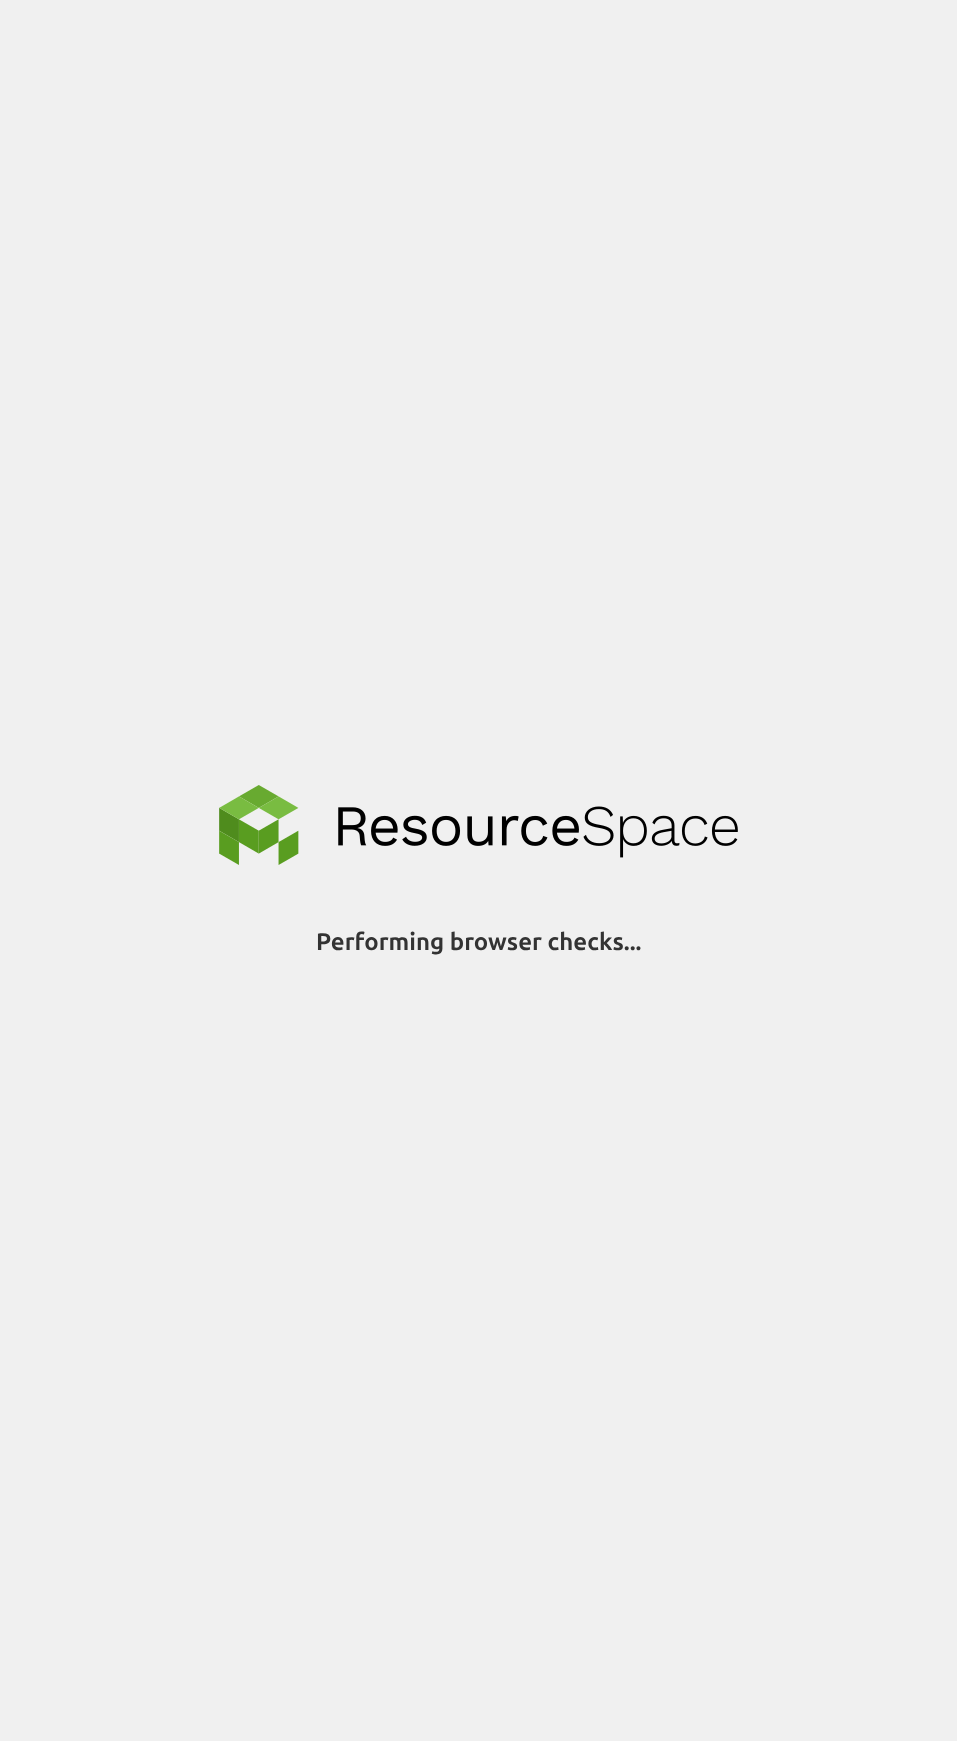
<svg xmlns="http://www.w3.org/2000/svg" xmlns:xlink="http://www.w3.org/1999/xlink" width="957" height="1741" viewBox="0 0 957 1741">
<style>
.cls-1{font:bold 24px Ubuntu;fill:#333333}
</style>
<rect width="100%" height="100%" fill="#f0f0f0"/>
<image xlink:href="image0.png" x="219" y="785" width="519" height="80"/>
<text class="cls-1" x="316" y="950">Performing browser checks...</text>
</svg>
